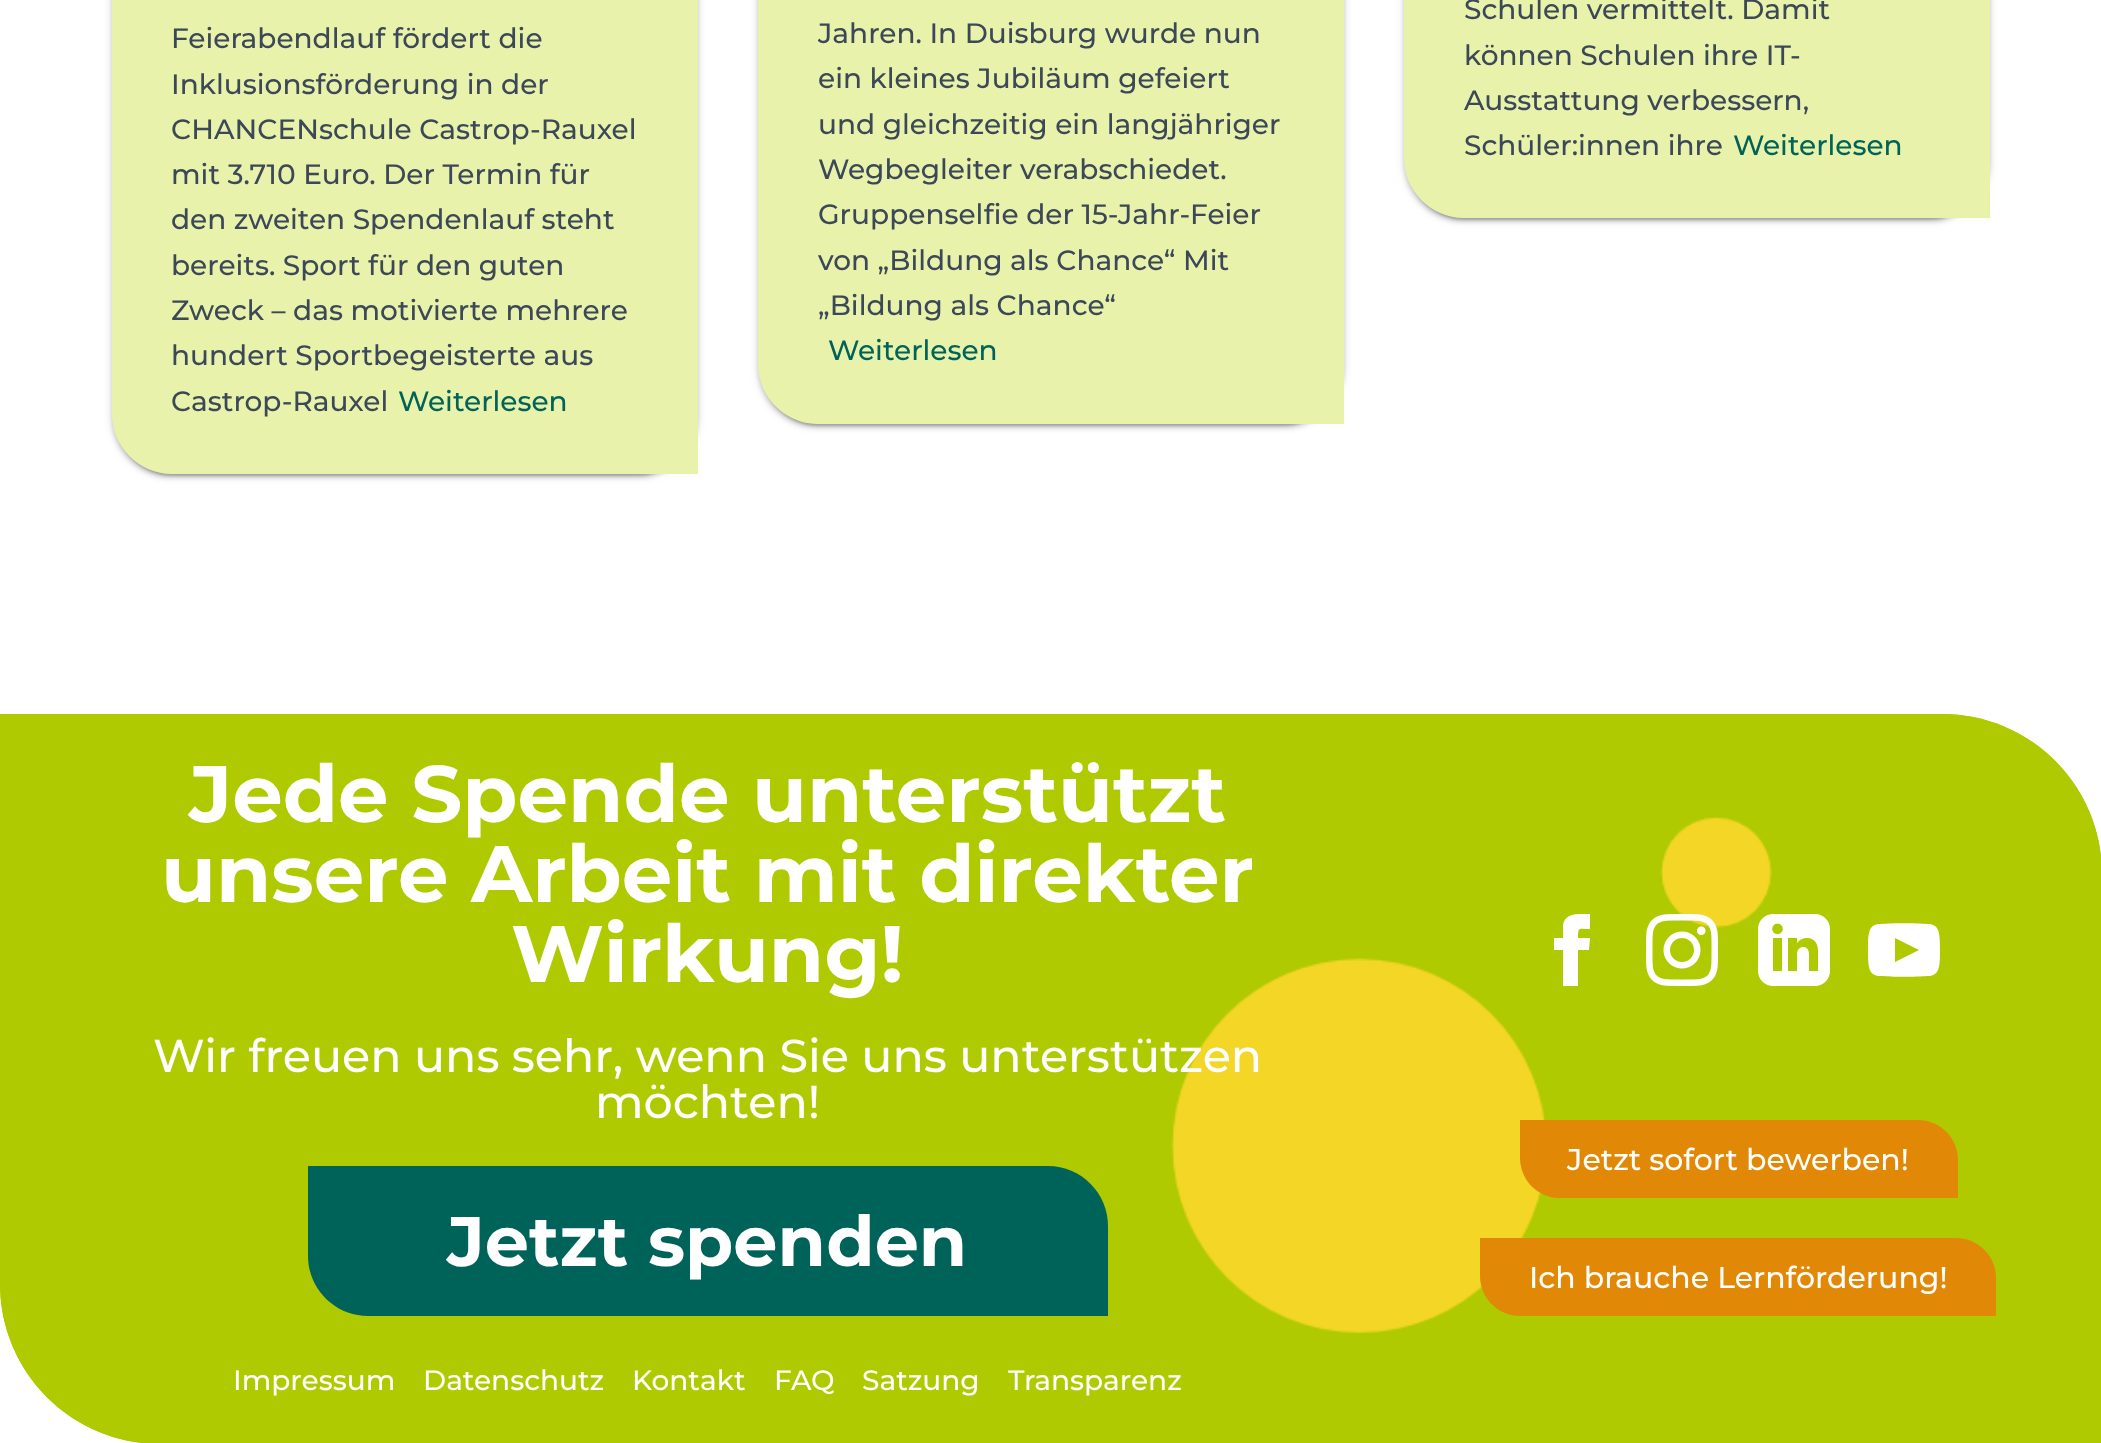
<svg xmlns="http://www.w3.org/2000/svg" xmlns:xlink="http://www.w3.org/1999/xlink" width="2101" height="1443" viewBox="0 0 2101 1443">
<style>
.cls-1{font:500 28px Montserrat;fill:#3c4858}
.cls-2{font:500 28px Montserrat;fill:#006359}
.cls-3{font:bold 80px Montserrat;fill:#ffffff}
.cls-4{font:500 46px Montserrat;fill:#ffffff}
.cls-5{font:bold 70px Montserrat;fill:#ffffff}
.cls-6{font:500 30px Montserrat;fill:#ffffff}
.cls-7{font:500 28px Montserrat;fill:#ffffff}
</style>
<defs>
<clipPath id="clip1"><rect x="1536" y="914" width="72" height="72"/></clipPath>
</defs>
<rect width="100%" height="100%" fill="#ffffff"/>
<rect fill="#000000" fill-opacity="0.12" filter="blur(5px)" x="112" y="-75" width="586" height="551" rx="60"/>
<rect fill="#000000" fill-opacity="0.2" filter="blur(1px)" x="116" y="-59" width="578" height="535" rx="56"/>
<rect fill="#000000" fill-opacity="0.14" filter="blur(2px)" x="112" y="-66" width="586" height="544" rx="60"/>
<path fill="#e9f2aa" d="M112-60H638C671-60 698-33 698 0V474H172C139 474 112 447 112 414Z"/>
<rect fill="#000000" fill-opacity="0.12" filter="blur(5px)" x="758" y="-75" width="586" height="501" rx="60"/>
<rect fill="#000000" fill-opacity="0.2" filter="blur(1px)" x="762" y="-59" width="578" height="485" rx="56"/>
<rect fill="#000000" fill-opacity="0.14" filter="blur(2px)" x="758" y="-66" width="586" height="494" rx="60"/>
<path fill="#e9f2aa" d="M758-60H1284C1317-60 1344-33 1344 0V424H818C785 424 758 397 758 364Z"/>
<rect fill="#000000" fill-opacity="0.12" filter="blur(5px)" x="1404" y="-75" width="586" height="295" rx="60"/>
<rect fill="#000000" fill-opacity="0.2" filter="blur(1px)" x="1408" y="-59" width="578" height="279" rx="56"/>
<rect fill="#000000" fill-opacity="0.14" filter="blur(2px)" x="1404" y="-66" width="586" height="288" rx="60"/>
<path fill="#e9f2aa" d="M1404-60H1930C1963-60 1990-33 1990 0V218H1464C1431 218 1404 191 1404 158Z"/>
<path fill="#afca00" d="M0 714H1942C2030.5 714 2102 785.5 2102 874V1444H160C71.5 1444 0 1372.5 0 1284Z"/>
<image xlink:href="image0.png" x="0" y="714" width="2101" height="729"/>
<path fill="#006359" d="M308 1166H1048C1081 1166 1108 1193 1108 1226V1316H368C335 1316 308 1289 308 1256Z"/>
<g clip-path="url(#clip1)">
<path fill="#ffffff" d="M1563 938H1554V950H1563V986H1578V950H1589L1590 938H1578C1578 926 1579 929 1590 929V914C1580 914 1565 912 1563 925Z"/>
</g>
<image xlink:href="image1.png" x="1646" y="914" width="72" height="72"/>
<image xlink:href="image2.png" x="1758" y="914" width="72" height="72"/>
<path fill="#ffffff" d="M1927 924C1916 923 1892 923 1881 924C1869 924 1868 931 1868 950C1868 969 1869 976 1881 976C1892 977 1916 977 1927 976C1939 976 1940 969 1940 950C1940 931 1939 924 1927 924ZM1895 962V938L1919 950Z"/>
<path fill="#e28807" d="M1520 1120H1918C1940 1120 1958 1138 1958 1160V1198H1560C1538 1198 1520 1180 1520 1158Z"/>
<path fill="#e28807" d="M1480 1238H1956C1978 1238 1996 1256 1996 1278V1316H1520C1498 1316 1480 1298 1480 1276Z"/>
<text class="cls-1"><tspan x="171" y="48">Feierabendlauf fördert die</tspan><tspan x="171" y="94">Inklusionsförderung in der</tspan><tspan x="171" y="139">CHANCENschule Castrop-Rauxel</tspan><tspan x="171" y="184">mit 3.710 Euro. Der Termin für</tspan><tspan x="171" y="229">den zweiten Spendenlauf steht</tspan><tspan x="171" y="275">bereits. Sport für den guten</tspan><tspan x="171" y="320">Zweck – das motivierte mehrere</tspan><tspan x="171" y="365">hundert Sportbegeisterte aus</tspan><tspan x="171" y="411">Castrop-Rauxel</tspan></text>
<text class="cls-2" x="398" y="411">Weiterlesen</text>
<text class="cls-1"><tspan x="818" y="43">Jahren. In Duisburg wurde nun</tspan><tspan x="818" y="88">ein kleines Jubiläum gefeiert</tspan><tspan x="818" y="134">und gleichzeitig ein langjähriger</tspan><tspan x="818" y="179">Wegbegleiter verabschiedet.</tspan><tspan x="818" y="224">Gruppenselfie der 15-Jahr-Feier</tspan><tspan x="818" y="270">von „Bildung als Chance“ Mit</tspan><tspan x="818" y="315">„Bildung als Chance“</tspan></text>
<text class="cls-2" x="828" y="360">Weiterlesen</text>
<text class="cls-1"><tspan x="1464" y="19">Schulen vermittelt. Damit</tspan><tspan x="1464" y="65">können Schulen ihre IT-</tspan><tspan x="1464" y="110">Ausstattung verbessern,</tspan><tspan x="1464" y="155">Schüler:innen ihre</tspan></text>
<text class="cls-2" x="1733" y="155">Weiterlesen</text>
<text class="cls-3" x="189" y="822">Jede Spende unterstützt</text>
<text class="cls-3" x="161" y="902">unsere Arbeit mit direkter</text>
<text class="cls-3" x="511" y="982">Wirkung!</text>
<text class="cls-4" x="153" y="1072">Wir freuen uns sehr, wenn Sie uns unterstützen</text>
<text class="cls-4" x="595" y="1118">möchten!</text>
<text class="cls-5" x="447" y="1266">Jetzt spenden</text>
<text class="cls-6" x="1567" y="1170">Jetzt sofort bewerben!</text>
<text class="cls-6" x="1529" y="1288">Ich brauche Lernförderung!</text>
<text class="cls-7" x="233" y="1390">Impressum</text>
<text class="cls-7" x="423" y="1390">Datenschutz</text>
<text class="cls-7" x="632" y="1390">Kontakt</text>
<text class="cls-7" x="774" y="1390">FAQ</text>
<text class="cls-7" x="862" y="1390">Satzung</text>
<text class="cls-7" x="1008" y="1390">Transparenz</text>
</svg>
